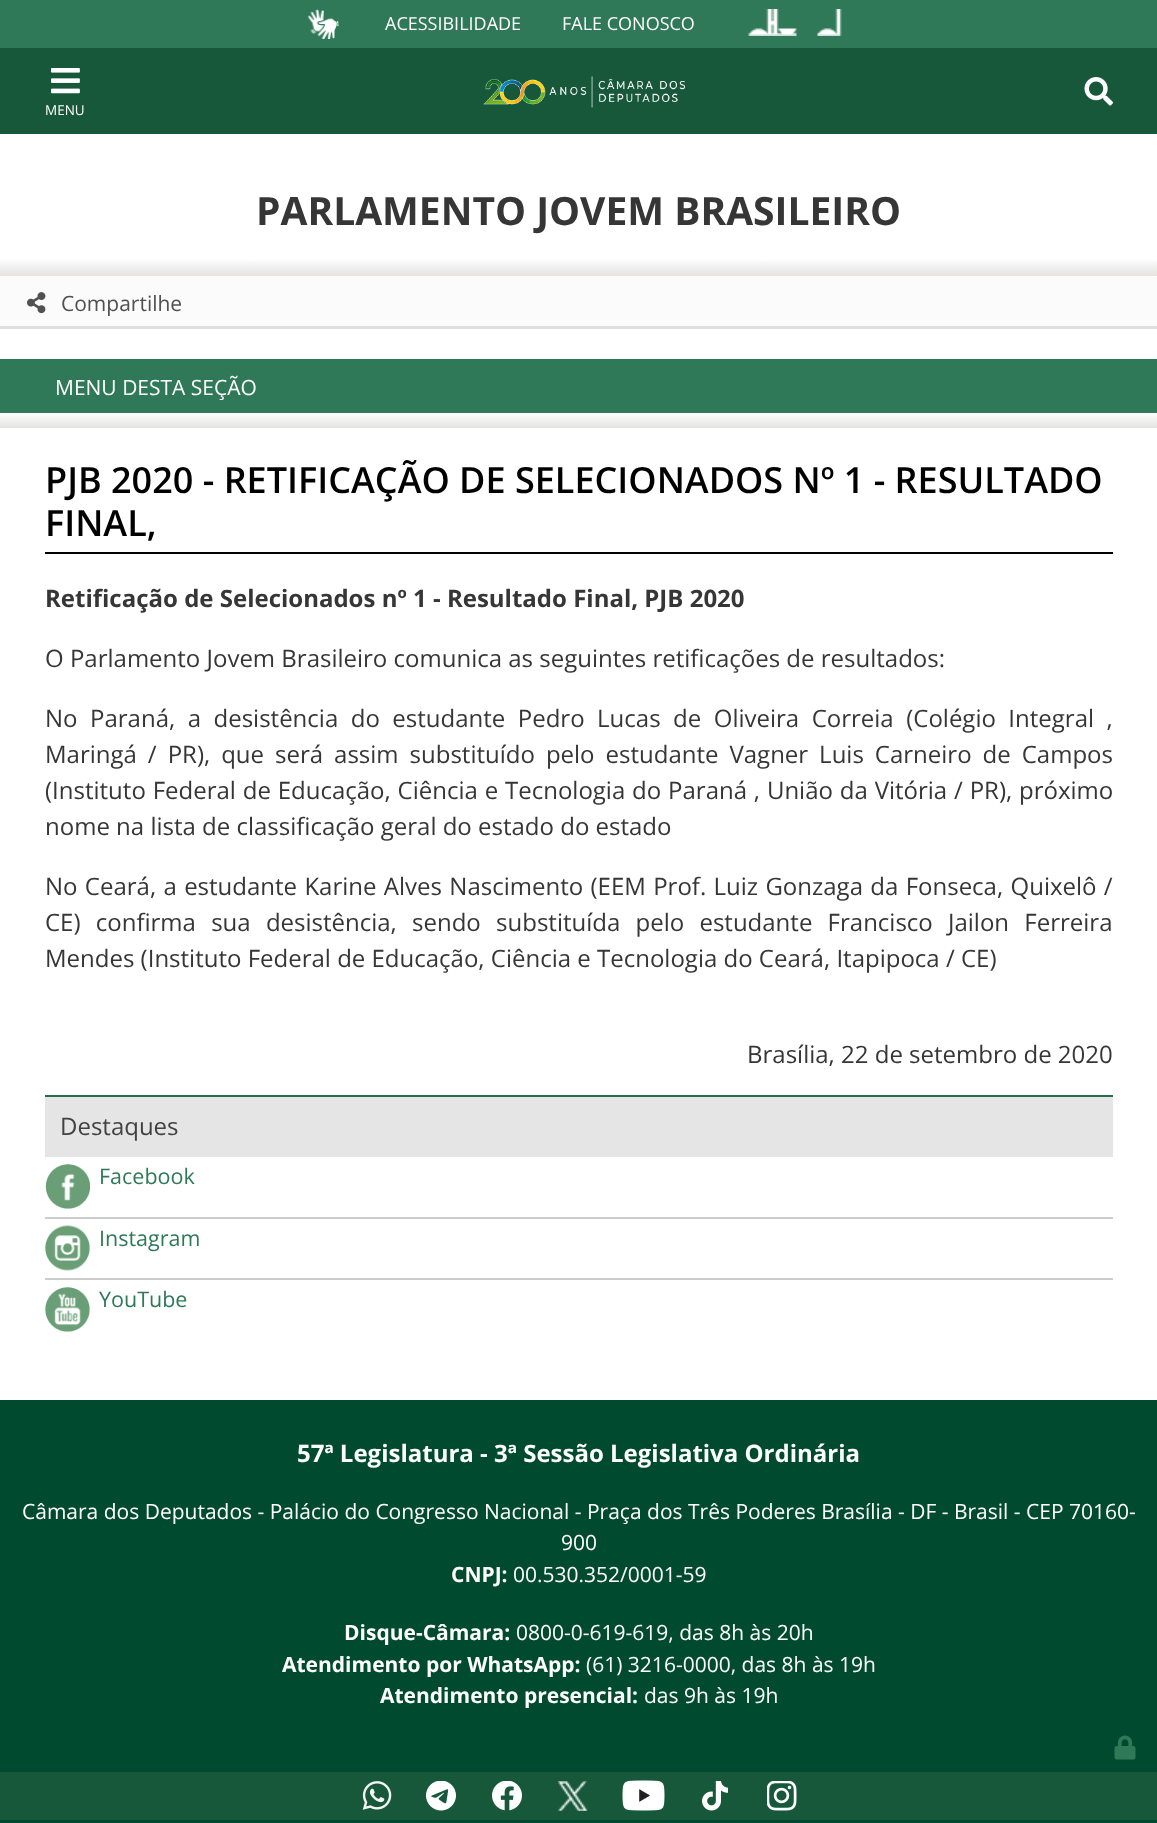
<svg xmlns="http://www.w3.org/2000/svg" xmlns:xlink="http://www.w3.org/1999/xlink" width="1157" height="1823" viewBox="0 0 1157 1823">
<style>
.cls-1{font:18px Open Sans;fill:#ffffff}
.cls-2{font:13.5px Open Sans;fill:#ffffff}
.cls-3{font:bold 39px Open Sans;fill:#363636}
.cls-4{font:21px Open Sans;fill:#515151}
.cls-5{font:21px Open Sans;fill:#ffffff}
.cls-6{font:600 36px Open Sans;fill:#000000}
.cls-7{font:bold 24px Open Sans;fill:#363636}
.cls-8{font:24px Open Sans;fill:#363636}
.cls-9{font:24px Open Sans;fill:#424242}
.cls-10{font:21.5px Open Sans;fill:#2f7958}
.cls-11{font:bold 24px Open Sans;fill:#ffffff}
.cls-12{font:bold 21px Open Sans;fill:#ffffff}
</style>
<defs>
<linearGradient id="g1" gradientUnits="userSpaceOnUse" x1="579" y1="258" x2="579" y2="276"><stop offset="0" stop-color="#ffffff"/><stop offset="1" stop-color="#e4e3e2"/></linearGradient>
<linearGradient id="g2" gradientUnits="userSpaceOnUse" x1="579" y1="412" x2="579" y2="428"><stop offset="0" stop-color="#ffffff"/><stop offset="1" stop-color="#e4e3e2"/></linearGradient>
</defs>
<rect width="100%" height="100%" fill="#ffffff"/>
<rect fill="#2f7958" x="0" y="0" width="1157" height="48"/>
<image xlink:href="image0.png" x="307" y="9" width="32" height="30"/>
<image xlink:href="image1.png" x="748" y="9" width="49" height="27"/>
<image xlink:href="image2.png" x="817" y="9" width="25" height="27"/>
<rect fill="#17583b" x="0" y="48" width="1157" height="86"/>
<image xlink:href="image3.png" x="483" y="76" width="202" height="32"/>
<image xlink:href="image4.png" x="1084" y="77" width="29" height="29"/>
<image xlink:href="image5.png" x="51" y="68" width="29" height="26"/>
<rect fill="url(#g1)" x="0" y="260" width="1157" height="16"/>
<rect fill="#fbfbfb" x="0" y="276" width="1157" height="50"/>
<rect fill="#dfdfdf" x="0" y="326" width="1157" height="3"/>
<image xlink:href="image6.png" x="27" y="292" width="19" height="22"/>
<rect fill="#2f7958" x="0" y="359" width="1157" height="54"/>
<rect fill="url(#g2)" x="0" y="413" width="1157" height="15"/>
<rect fill="#000000" x="45" y="552" width="1068" height="2"/>
<rect fill="#e5e5e5" x="45" y="1097" width="1068" height="60"/>
<rect fill="#276d4d" x="45" y="1095" width="1068" height="2"/>
<rect fill="#cccccc" x="45" y="1217" width="1068" height="2"/>
<image xlink:href="image7.png" x="45" y="1164" width="45" height="45"/>
<rect fill="#cccccc" x="45" y="1278" width="1068" height="2"/>
<image xlink:href="image8.png" x="45" y="1225" width="45" height="46"/>
<image xlink:href="image9.png" x="45" y="1287" width="45" height="45"/>
<rect fill="#004a2f" x="0" y="1400" width="1157" height="372"/>
<image xlink:href="image10.png" x="1114" y="1735" width="22" height="25"/>
<rect fill="#17583b" x="0" y="1772" width="1157" height="48"/>
<image xlink:href="image11.png" x="362" y="1781" width="30" height="29"/>
<image xlink:href="image12.png" x="426" y="1781" width="30" height="30"/>
<image xlink:href="image13.png" x="492" y="1781" width="30" height="30"/>
<image xlink:href="image14.png" x="558" y="1781" width="30" height="30"/>
<image xlink:href="image15.png" x="622" y="1780" width="43" height="31"/>
<image xlink:href="image16.png" x="702" y="1781" width="26" height="30"/>
<image xlink:href="image17.png" x="767" y="1781" width="30" height="30"/>
<rect fill="#004a2f" x="0" y="1820" width="1157" height="3"/>
<text class="cls-1" x="385" y="30">ACESSIBILIDADE</text>
<text class="cls-1" x="562" y="30">FALE CONOSCO</text>
<text class="cls-2" x="45" y="115">MENU</text>
<text class="cls-3" x="256" y="225">PARLAMENTO JOVEM BRASILEIRO</text>
<text class="cls-4" x="61" y="311">Compartilhe</text>
<text class="cls-5" x="55" y="395">MENU DESTA SEÇÃO</text>
<text class="cls-6"><tspan x="45" y="493">PJB 2020 - RETIFICAÇÃO DE SELECIONADOS Nº 1 - RESULTADO</tspan><tspan x="45" y="536">FINAL,</tspan></text>
<text class="cls-7" x="45" y="607">Retificação de Selecionados nº 1 - Resultado Final, PJB 2020</text>
<text class="cls-8" x="45" y="667">O Parlamento Jovem Brasileiro comunica as seguintes retificações de resultados:</text>
<text class="cls-8"><tspan x="45" y="727" word-spacing="6.25">No Paraná, a desistência do estudante Pedro Lucas de Oliveira Correia (Colégio Integral ,</tspan><tspan x="45" y="763" word-spacing="4.75">Maringá / PR), que será assim substituído pelo estudante Vagner Luis Carneiro de Campos</tspan><tspan x="45" y="799" word-spacing="0.6">(Instituto Federal de Educação, Ciência e Tecnologia do Paraná , União da Vitória / PR), próximo</tspan><tspan x="45" y="835">nome na lista de classificação geral do estado do estado</tspan></text>
<text class="cls-8"><tspan x="45" y="895" word-spacing="1.1">No Ceará, a estudante Karine Alves Nascimento (EEM Prof. Luiz Gonzaga da Fonseca, Quixelô /</tspan><tspan x="45" y="931" word-spacing="9">CE) confirma sua desistência, sendo substituída pelo estudante Francisco Jailon Ferreira</tspan><tspan x="45" y="967">Mendes (Instituto Federal de Educação, Ciência e Tecnologia do Ceará, Itapipoca / CE)</tspan></text>
<text class="cls-8" x="747" y="1063">Brasília, 22 de setembro de 2020</text>
<text class="cls-9" x="60" y="1135">Destaques</text>
<text class="cls-10" x="99" y="1184">Facebook</text>
<text class="cls-10" x="99" y="1246">Instagram</text>
<text class="cls-10" x="99" y="1307">YouTube</text>
<text class="cls-11" x="297" y="1462">57ª Legislatura - 3ª Sessão Legislativa Ordinária</text>
<text class="cls-5" x="22" y="1519">Câmara dos Deputados - Palácio do Congresso Nacional - Praça dos Três Poderes Brasília - DF - Brasil - CEP 70160-</text>
<text class="cls-5" x="561" y="1550">900</text>
<text class="cls-12" x="451" y="1582">CNPJ:</text>
<text class="cls-5" x="513" y="1582">00.530.352/0001-59</text>
<text class="cls-12" x="344" y="1640">Disque-Câmara:</text>
<text class="cls-5" x="516" y="1640">0800-0-619-619, das 8h às 20h</text>
<text class="cls-12" x="282" y="1672">Atendimento por WhatsApp:</text>
<text class="cls-5" x="586" y="1672">(61) 3216-0000, das 8h às 19h</text>
<text class="cls-12" x="380" y="1703">Atendimento presencial:</text>
<text class="cls-5" x="644" y="1703">das 9h às 19h</text>
</svg>
